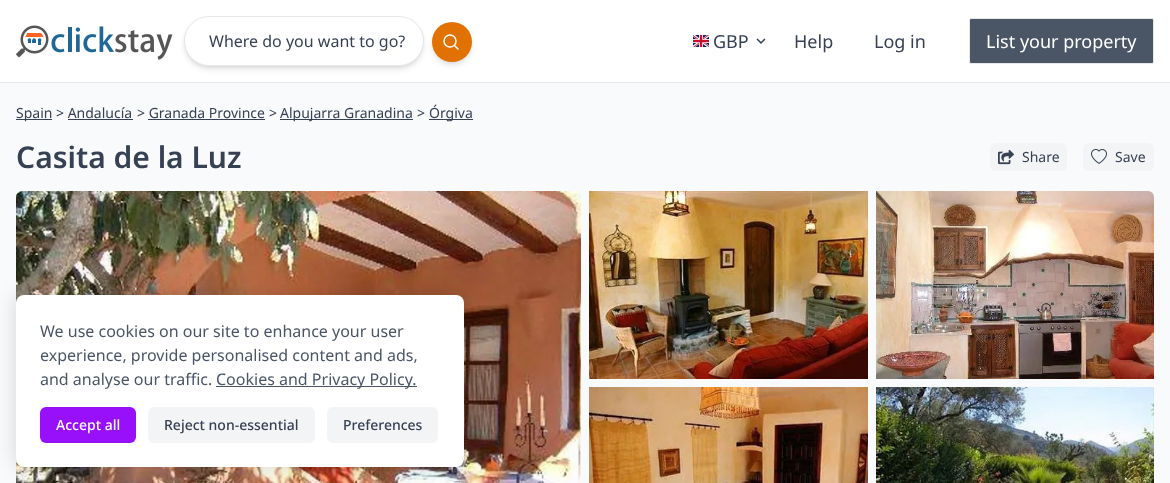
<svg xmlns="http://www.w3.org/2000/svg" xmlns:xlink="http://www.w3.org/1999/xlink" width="1170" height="483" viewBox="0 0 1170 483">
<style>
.cls-1{font:16px Noto Sans;fill:#364153}
.cls-2{font:18px Noto Sans;fill:#364153}
.cls-3{font:18px Noto Sans;fill:#ffffff}
.cls-4{font:14px Noto Sans;fill:#364153}
.cls-5{font:600 30px Noto Sans;fill:#364153}
.cls-6{font:16px Noto Sans;fill:#4a5565}
.cls-7{font:500 14px Noto Sans;fill:#ffffff}
.cls-8{font:500 14px Noto Sans;fill:#364153}
</style>
<rect width="100%" height="100%" fill="#f9fafb"/>
<rect fill="#ffffff" x="0" y="0" width="1170" height="82"/>
<rect fill="#e5e7eb" x="0" y="82" width="1170" height="1"/>
<image xlink:href="image0.png" x="16" y="25" width="157" height="35"/>
<rect fill="#000000" fill-opacity="0.1" filter="blur(2px)" x="186" y="20" width="236" height="46" rx="23"/>
<rect fill="#000000" fill-opacity="0.1" filter="blur(3px)" x="185" y="21" width="238" height="48" rx="24"/>
<rect fill="#ffffff" stroke="#e5e7eb" x="184.5" y="16.5" width="239" height="49" rx="24.5"/>
<rect fill="#000000" fill-opacity="0.1" filter="blur(2px)" x="434" y="26" width="36" height="36" rx="18"/>
<rect fill="#000000" fill-opacity="0.1" filter="blur(3px)" x="433" y="27" width="38" height="38" rx="19"/>
<circle fill="#e17100" cx="452" cy="42" r="20"/>
<circle fill="none" stroke="#ffffff" stroke-width="1.5" cx="450" cy="41" r="6"/>
<path fill="none" stroke="#ffffff" stroke-width="1.5" stroke-linecap="round" stroke-linejoin="round" d="M458 49L454.5 45.5"/>
<image xlink:href="image1.png" x="693" y="35" width="16" height="12"/>
<image xlink:href="image2.png" x="756" y="38" width="10" height="6"/>
<rect fill="#4a5565" stroke="#e5e7eb" x="969.5" y="18.5" width="184" height="45" rx="1.5"/>
<rect fill="#364153" x="16" y="119" width="36" height="1"/>
<rect fill="#364153" x="68" y="119" width="65" height="1"/>
<rect fill="#364153" x="148" y="119" width="117" height="1"/>
<rect fill="#364153" x="280" y="119" width="133" height="1"/>
<rect fill="#364153" x="429" y="119" width="44" height="1"/>
<rect fill="#f3f4f6" x="990" y="143" width="77" height="28" rx="6"/>
<image xlink:href="image3.png" x="998" y="149" width="16" height="16"/>
<rect fill="#f3f4f6" x="1083" y="143" width="71" height="28" rx="6"/>
<image xlink:href="image4.png" x="1091" y="149" width="16" height="15"/>
<image xlink:href="image5.png" x="16" y="191" width="565" height="292"/>
<image xlink:href="image6.png" x="589" y="191" width="279" height="188"/>
<image xlink:href="image7.png" x="876" y="191" width="278" height="188"/>
<image xlink:href="image8.png" x="589" y="387" width="279" height="96"/>
<image xlink:href="image9.png" x="876" y="387" width="278" height="96"/>
<rect fill="#000000" fill-opacity="0.15" filter="blur(10px)" x="16" y="295" width="448" height="172" rx="8"/>
<rect fill="#ffffff" x="16" y="295" width="448" height="172" rx="8"/>
<rect fill="#4a5565" x="216" y="386" width="201" height="1"/>
<rect fill="#9810fa" x="40" y="407" width="96" height="36" rx="6"/>
<rect fill="#f3f4f6" x="148" y="407" width="167" height="36" rx="6"/>
<rect fill="#f3f4f6" x="327" y="407" width="111" height="36" rx="6"/>
<text class="cls-1" x="209" y="47">Where do you want to go?</text>
<text class="cls-2" x="713" y="48">GBP</text>
<text class="cls-2" x="794" y="48">Help</text>
<text class="cls-2" x="874" y="48">Log in</text>
<text class="cls-3" x="986" y="48">List your property</text>
<text class="cls-4" x="16" y="118">Spain</text>
<text class="cls-4" x="56" y="118">&gt; Andalucía</text>
<text class="cls-4" x="137" y="118">&gt; Granada Province</text>
<text class="cls-4" x="269" y="118">&gt;</text>
<text class="cls-4" x="280" y="118">Alpujarra Granadina</text>
<text class="cls-4" x="417" y="118">&gt;</text>
<text class="cls-4" x="429" y="118">Órgiva</text>
<text class="cls-5" x="16" y="168">Casita de la Luz</text>
<text class="cls-4" x="1022" y="162">Share</text>
<text class="cls-4" x="1115" y="162">Save</text>
<text class="cls-6"><tspan x="40" y="337">We use cookies on our site to enhance your user</tspan><tspan x="40" y="361">experience, provide personalised content and ads,</tspan><tspan x="40" y="385">and analyse our traffic.</tspan></text>
<text class="cls-6" x="216" y="385">Cookies and Privacy Policy.</text>
<text class="cls-7" x="56" y="430">Accept all</text>
<text class="cls-8" x="164" y="430">Reject non-essential</text>
<text class="cls-8" x="343" y="430">Preferences</text>
</svg>
